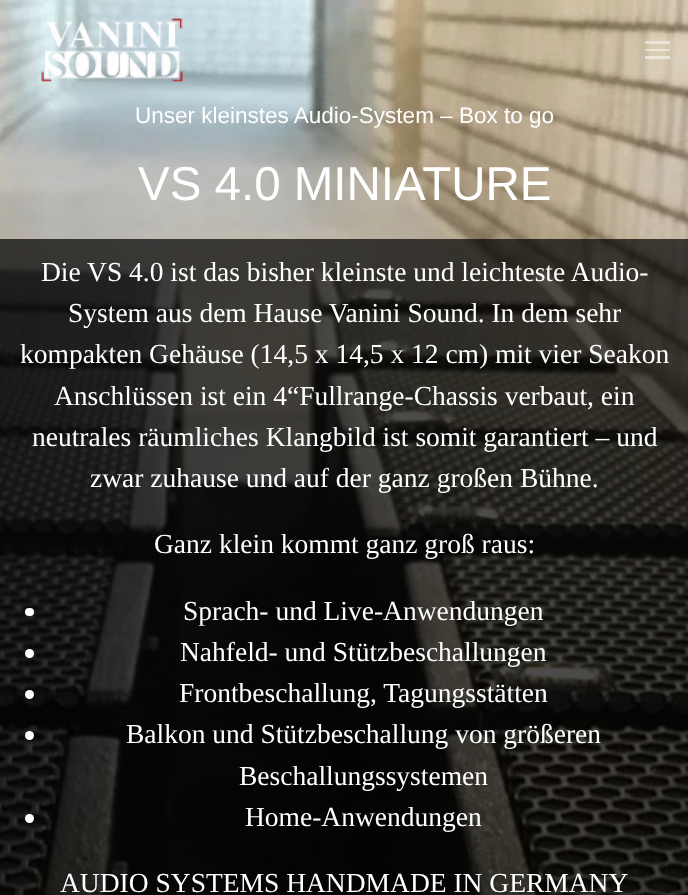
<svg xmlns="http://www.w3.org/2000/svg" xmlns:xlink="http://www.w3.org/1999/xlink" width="688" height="895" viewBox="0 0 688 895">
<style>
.cls-1{font:22.5px Liberation Sans;fill:#ffffff}
.cls-2{font:47.5px Liberation Sans;fill:#ffffff}
.cls-3{font:27.5px Liberation Serif;fill:#ffffff}
</style>
<rect width="100%" height="100%" fill="#ffffff"/>
<image xlink:href="image1.png" x="0" y="0" width="688" height="895"/>
<image xlink:href="image0.png" x="41" y="17" width="142" height="65"/>
<rect fill="#ffffff" fill-opacity="0.5" x="645" y="41" width="25" height="3"/>
<rect fill="#ffffff" fill-opacity="0.5" x="645" y="49" width="25" height="2"/>
<rect fill="#ffffff" fill-opacity="0.5" x="645" y="56" width="25" height="3"/>
<rect fill="#000000" fill-opacity="0.7" x="0" y="239" width="688" height="656"/>
<rect fill="#ffffff" x="25" y="608" width="9" height="8" rx="4"/>
<circle fill="#ffffff" cx="29.5" cy="653.5" r="4.5"/>
<circle fill="#ffffff" cx="29.5" cy="694.5" r="4.5"/>
<circle fill="#ffffff" cx="29.5" cy="735.5" r="4.5"/>
<circle fill="#ffffff" cx="29.5" cy="818.5" r="4.5"/>
<text class="cls-1" x="135" y="123">Unser kleinstes Audio-System – Box to go</text>
<text class="cls-2" x="138" y="200">VS 4.0 MINIATURE</text>
<text class="cls-3" x="41" y="281">Die VS 4.0 ist das bisher kleinste und leichteste Audio-</text>
<text class="cls-3" x="68" y="322">System aus dem Hause Vanini Sound. In dem sehr</text>
<text class="cls-3" x="20" y="363">kompakten Gehäuse (14,5 x 14,5 x 12 cm) mit vier Seakon</text>
<text class="cls-3" x="54" y="405">Anschlüssen ist ein 4“Fullrange-Chassis verbaut, ein</text>
<text class="cls-3" x="32" y="446">neutrales räumliches Klangbild ist somit garantiert – und</text>
<text class="cls-3" x="90" y="487">zwar zuhause und auf der ganz großen Bühne.</text>
<text class="cls-3" x="154" y="553">Ganz klein kommt ganz groß raus:</text>
<text class="cls-3" x="183" y="620">Sprach- und Live-Anwendungen</text>
<text class="cls-3" x="180" y="661">Nahfeld- und Stützbeschallungen</text>
<text class="cls-3" x="179" y="702">Frontbeschallung, Tagungsstätten</text>
<text class="cls-3" x="126" y="743">Balkon und Stützbeschallung von größeren</text>
<text class="cls-3" x="239" y="785">Beschallungssystemen</text>
<text class="cls-3" x="245" y="826">Home-Anwendungen</text>
<text class="cls-3" x="60" y="892">AUDIO SYSTEMS HANDMADE IN GERMANY</text>
</svg>
